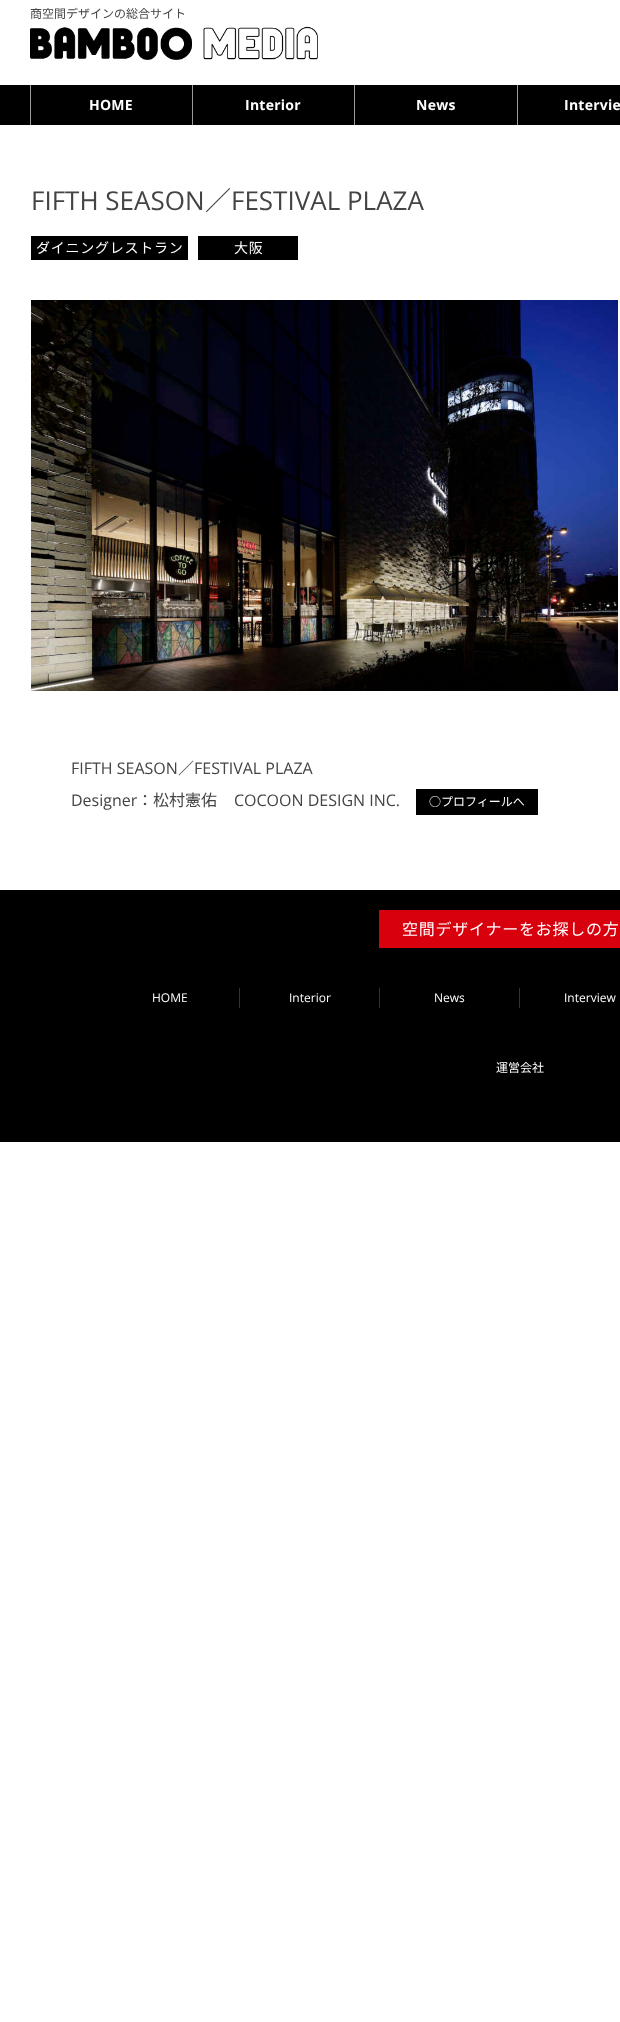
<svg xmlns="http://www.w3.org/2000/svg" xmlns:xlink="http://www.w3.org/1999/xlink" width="620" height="2022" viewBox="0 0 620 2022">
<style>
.cls-1{font:12px Noto Sans JP;fill:#444444}
.cls-2{font:bold 14px Open Sans;letter-spacing:0.25px;fill:#ffffff}
.cls-3{font:26px Open Sans;fill:#444444}
.cls-4{font:26px Noto Sans JP;fill:#444444}
.cls-5{font:14px Noto Sans JP;letter-spacing:0.75px;fill:#ffffff}
.cls-6{font:16px Open Sans;fill:#444444}
.cls-7{font:16px Noto Sans JP;fill:#444444}
.cls-8{font:12px Noto Sans JP;fill:#ffffff}
.cls-9{font:16px Noto Sans JP;letter-spacing:0.75px;fill:#ffffff}
.cls-10{font:12px Open Sans;fill:#ffffff}
</style>
<rect width="100%" height="100%" fill="#ffffff"/>
<image xlink:href="image0.png" x="30" y="26" width="288" height="34"/>
<rect fill="#000000" x="0" y="85" width="620" height="40"/>
<rect fill="#999999" x="192" y="85" width="1" height="40"/>
<rect fill="#999999" x="30" y="85" width="1" height="40"/>
<rect fill="#999999" x="354" y="85" width="1" height="40"/>
<rect fill="#999999" x="517" y="85" width="1" height="40"/>
<rect fill="#000000" x="31" y="236" width="157" height="24"/>
<rect fill="#000000" x="198" y="236" width="100" height="24"/>
<image xlink:href="image1.png" x="31" y="300" width="587" height="391"/>
<rect fill="#000000" x="416" y="789" width="122" height="26"/>
<rect fill="#000000" x="0" y="890" width="620" height="252"/>
<rect fill="#d8000d" x="379" y="910" width="241" height="38"/>
<rect fill="#333333" x="239" y="988" width="1" height="20"/>
<rect fill="#333333" x="379" y="988" width="1" height="20"/>
<rect fill="#333333" x="519" y="988" width="1" height="20"/>
<text class="cls-1" x="30" y="18">商空間デザインの総合サイト</text>
<text class="cls-2" x="89" y="110">HOME</text>
<text class="cls-2" x="245" y="110">Interior</text>
<text class="cls-2" x="416" y="110">News</text>
<text class="cls-2" x="564" y="110">Intervie</text>
<text class="cls-3" x="31" y="210">FIFTH SEASON</text>
<text class="cls-4" x="205" y="210">／</text>
<text class="cls-3" x="231" y="210">FESTIVAL PLAZA</text>
<text class="cls-5" x="36" y="253">ダイニングレストラン</text>
<text class="cls-5" x="234" y="253">大阪</text>
<text class="cls-6" x="71" y="774">FIFTH SEASON</text>
<text class="cls-7" x="178" y="774">／</text>
<text class="cls-6" x="194" y="774">FESTIVAL PLAZA</text>
<text class="cls-6" x="71" y="806">Designer</text>
<text class="cls-7" x="137" y="806">：松村憲佑</text>
<text class="cls-6" x="234" y="806">COCOON DESIGN INC.</text>
<text class="cls-8" x="429" y="806">○プロフィールへ</text>
<text class="cls-9" x="402" y="935">空間デザイナーをお探しの方</text>
<text class="cls-10" x="152" y="1002">HOME</text>
<text class="cls-10" x="289" y="1002">Interior</text>
<text class="cls-10" x="434" y="1002">News</text>
<text class="cls-10" x="564" y="1002">Interview</text>
<text class="cls-8" x="496" y="1072">運営会社</text>
</svg>
